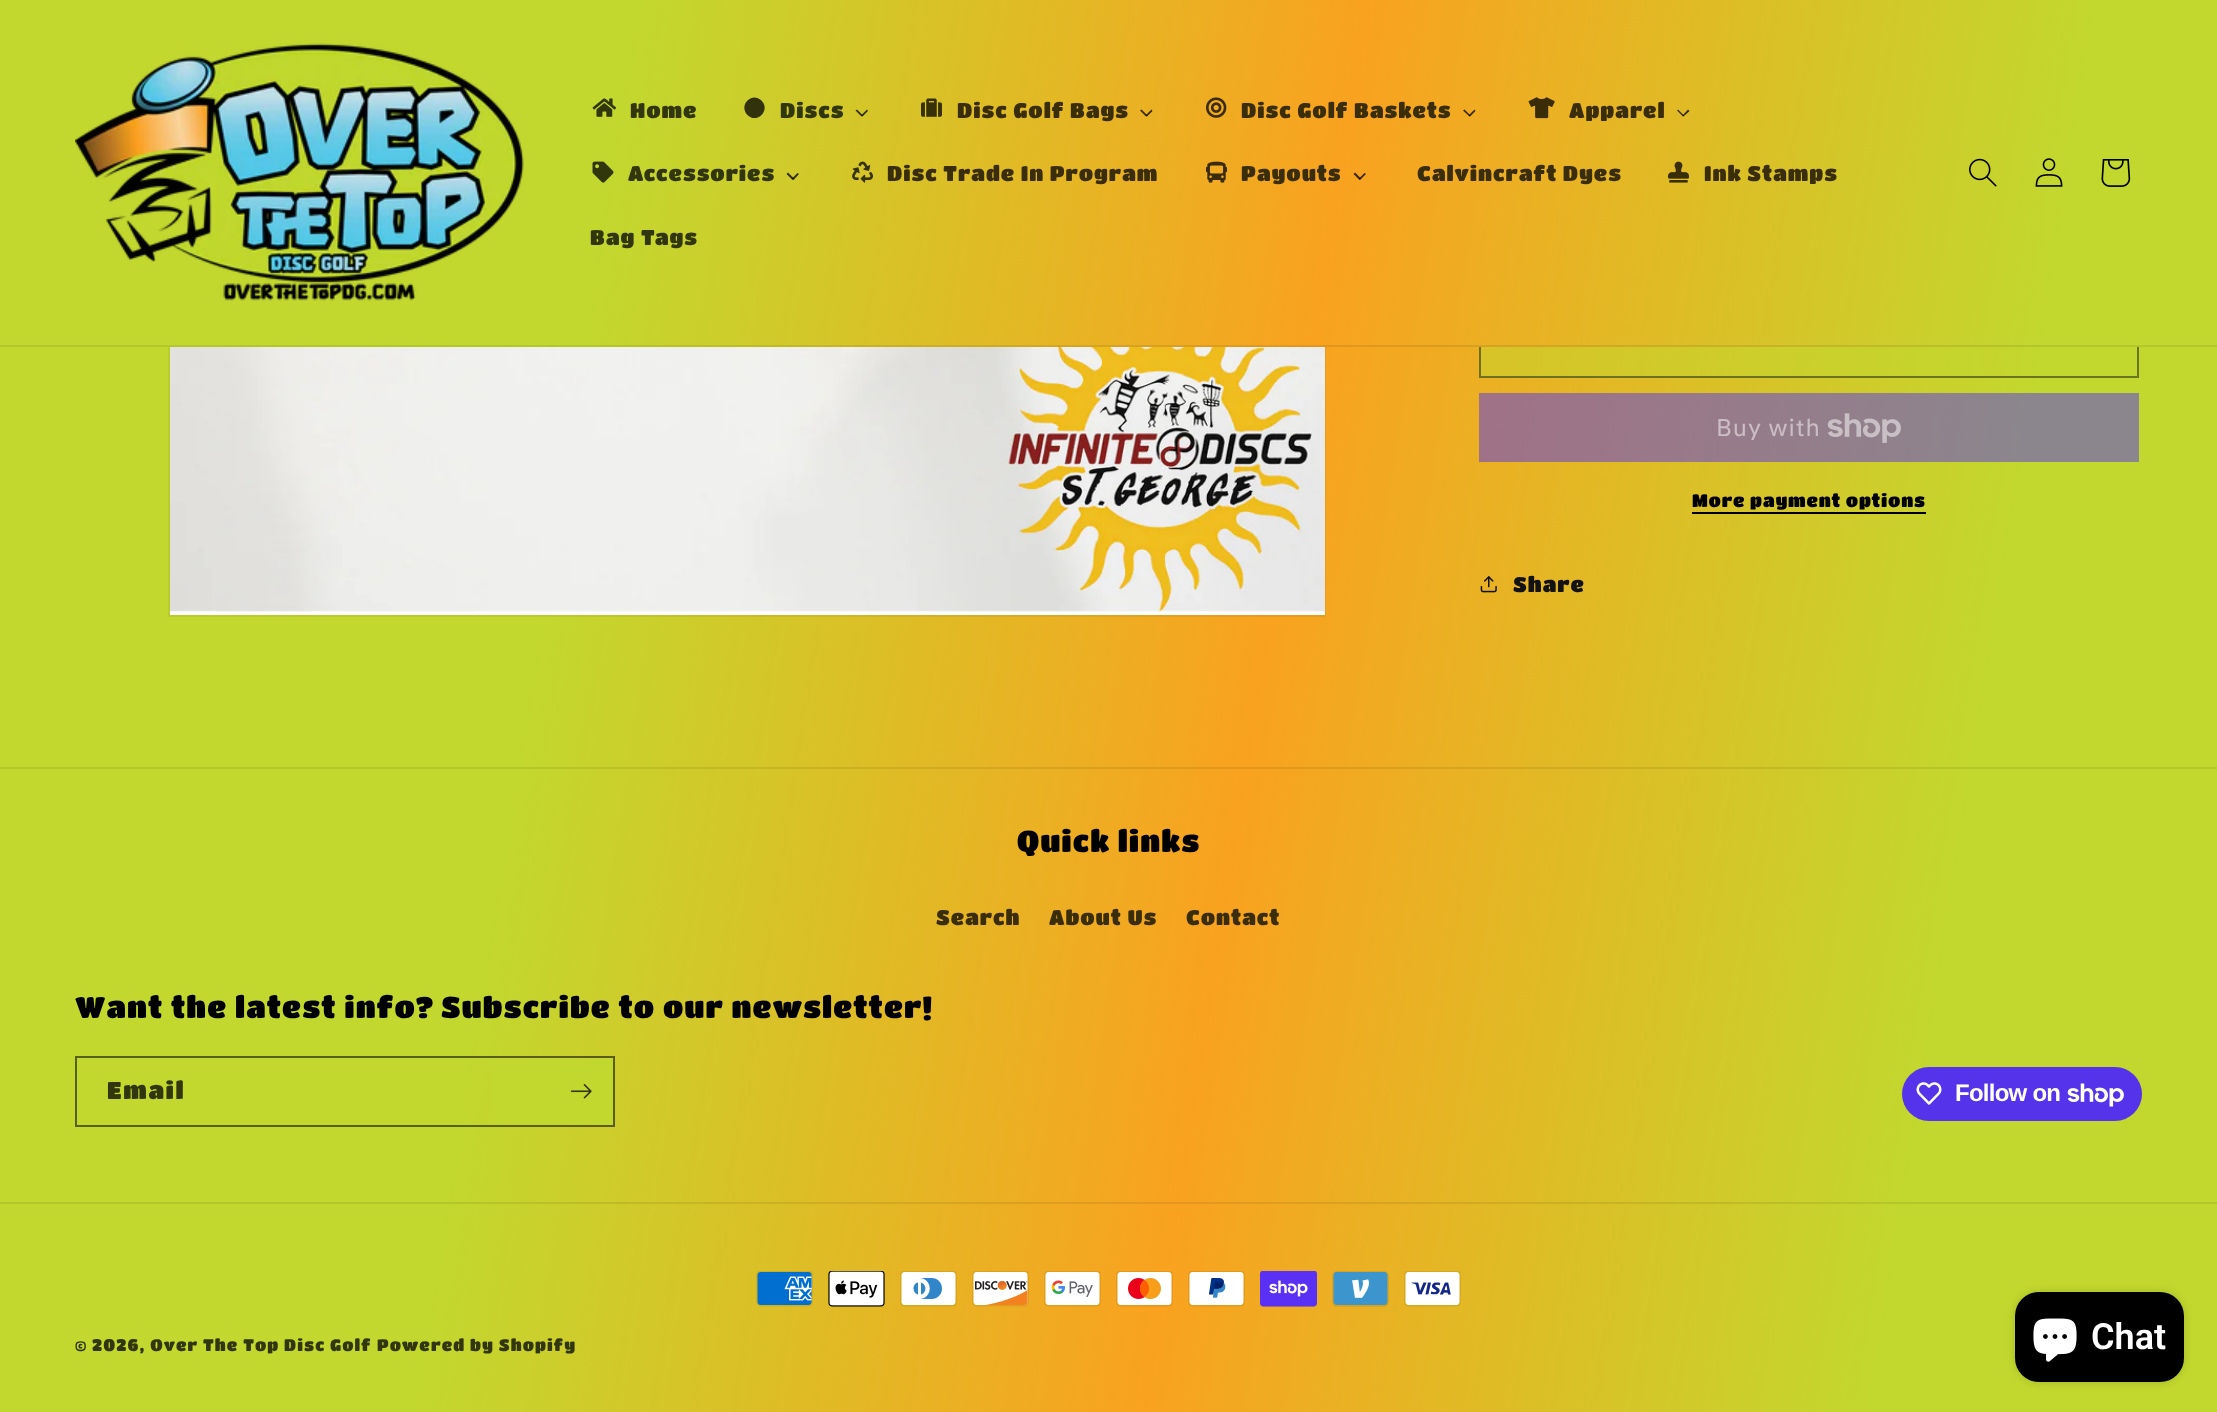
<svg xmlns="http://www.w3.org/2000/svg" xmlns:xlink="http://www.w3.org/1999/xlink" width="2217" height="1412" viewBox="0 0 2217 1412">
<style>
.cls-1{font:21px Titan One;letter-spacing:0.9px;fill:#31360c}
.cls-2{font:21px Titan One;letter-spacing:0.9px;fill:#3a2d09}
.cls-3{font:24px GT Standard;letter-spacing:0.9px;fill:#cabdc4}
.cls-4{font:18px Titan One;letter-spacing:0.75px;fill:#000000}
.cls-5{font:21px Titan One;letter-spacing:0.9px;fill:#121212}
.cls-6{font:29.75px Titan One;letter-spacing:1px;fill:#000000}
.cls-7{font:24px Titan One;letter-spacing:1.5px;fill:#31360c}
.cls-8{font:bold 24px Liberation Sans;letter-spacing:-0.75px;fill:#ffffff}
.cls-9{font:16.5px Titan One;letter-spacing:1.05px;fill:#31360c}
.cls-10{font:600 36px Roboto;fill:#ffffff}
</style>
<defs>
<linearGradient id="g1" gradientUnits="userSpaceOnUse" x1="-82" y1="518" x2="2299" y2="895"><stop offset="0.26" stop-color="#c2d82e"/><stop offset="0.56" stop-color="#f9a21f"/><stop offset="0.86" stop-color="#c2d82e"/></linearGradient>
<linearGradient id="g2" gradientUnits="userSpaceOnUse" x1="-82" y1="518" x2="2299" y2="895"><stop offset="0.26" stop-color="#b2c72a"/><stop offset="0.56" stop-color="#e5951d"/><stop offset="0.86" stop-color="#b2c72a"/></linearGradient>
<linearGradient id="g3" gradientUnits="userSpaceOnUse" x1="-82" y1="518" x2="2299" y2="895"><stop offset="0.26" stop-color="#8b868d"/><stop offset="0.56" stop-color="#a76b85"/><stop offset="0.86" stop-color="#8b868d"/></linearGradient>
<linearGradient id="g4" gradientUnits="userSpaceOnUse" x1="-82" y1="518" x2="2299" y2="895"><stop offset="0.26" stop-color="#c2d82e"/><stop offset="0.56" stop-color="#debd27"/><stop offset="0.86" stop-color="#c2d82e"/></linearGradient>
</defs>
<rect width="100%" height="100%" fill="#ffffff"/>
<rect fill="url(#g1)" x="0" y="347" width="2217" height="1065"/>
<rect fill="url(#g2)" x="0" y="1202" width="2217" height="2"/>
<rect fill="url(#g3)" x="1479" y="393" width="660" height="69"/>
<rect fill="url(#g4)" x="1479" y="347" width="505" height="31"/>
<rect fill="url(#g2)" x="0" y="767" width="2217" height="2"/>
<rect fill="none" stroke="#000000" stroke-opacity="0.05" stroke-width="2" x="169" y="-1" width="1156" height="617"/>
<rect fill="none" stroke="#c2d82e" stroke-opacity="0.5" stroke-width="2" x="1480" y="309" width="658" height="68"/>
<rect fill="none" stroke="#121212" stroke-opacity="0.5" stroke-width="2" x="1480" y="309" width="658" height="68"/>
<rect fill="url(#g1)" x="0" y="0" width="2217" height="347"/>
<rect fill="#000000" fill-opacity="0.08" x="0" y="345" width="2217" height="2"/>
<image xlink:href="image0.png" x="75" y="43" width="449" height="258"/>
<image xlink:href="image1.png" x="592" y="98" width="25" height="19"/>
<path fill="#33330b" d="M747.5 100.5C757 91 771 105.5 761.5 115C752 124.5 738 110 747.5 100.5Z"/>
<path fill="#35320a" d="M867 109.5L868 111L862.5 116.5L861 115.5Z"/>
<path fill="#000000" fill-opacity="0.75" d="M857 109.5L863 115.5L861.5 116.5L855.5 110.5Z"/>
<image xlink:href="image2.png" x="921" y="98" width="21" height="19"/>
<path fill="#3b2c09" d="M1151.5 109.5L1152.5 111L1147 116.5L1145.5 115.5Z"/>
<path fill="#000000" fill-opacity="0.75" d="M1141.5 109.5L1147.5 115.5L1146 116.5L1140 110.5Z"/>
<image xlink:href="image3.png" x="1206" y="97" width="21" height="21"/>
<path fill="#3c2b08" d="M1474.5 109.5L1475.5 111L1470 116.5L1468.5 115.5Z"/>
<path fill="#000000" fill-opacity="0.75" d="M1464.5 109.5L1470.5 115.5L1469.5 116.5L1463 110.5Z"/>
<image xlink:href="image4.png" x="1528" y="97" width="27" height="22"/>
<path fill="#382f0a" d="M1688 109.5L1689.5 111L1683.5 116.5L1682.5 115.5Z"/>
<path fill="#000000" fill-opacity="0.75" d="M1678 109.5L1684 115.5L1683 116.5L1677 110.5Z"/>
<image xlink:href="image5.png" x="592" y="161" width="22" height="22"/>
<path fill="#34330b" d="M797.5 173L799 174L793.5 180L792 178.5Z"/>
<path fill="#000000" fill-opacity="0.75" d="M788 172.5L794 178.5L792.5 180L786.5 174Z"/>
<image xlink:href="image6.png" x="852" y="161" width="21" height="22"/>
<image xlink:href="image7.png" x="1206" y="161" width="21" height="22"/>
<path fill="#3e2908" d="M1364.5 173L1366 174L1360 180L1359 178.5Z"/>
<path fill="#000000" fill-opacity="0.75" d="M1355 172.5L1361 178.5L1359.5 180L1353.5 174Z"/>
<image xlink:href="image8.png" x="1668" y="161" width="21" height="22"/>
<image xlink:href="image9.png" x="1969" y="158" width="28" height="29"/>
<image xlink:href="image10.png" x="2035" y="158" width="28" height="29"/>
<image xlink:href="image11.png" x="2101" y="159" width="30" height="28"/>
<image xlink:href="image12.png" x="170" y="347" width="1155" height="268"/>
<image xlink:href="image13.png" x="1827" y="413" width="74" height="30"/>
<rect fill="#000000" x="1692" y="512" width="234" height="2"/>
<image xlink:href="image14.png" x="1480" y="576" width="17" height="17"/>
<rect fill="#c2d82e" x="490" y="1058" width="124" height="67"/>
<rect fill="none" stroke="#000000" stroke-opacity="0.55" stroke-width="2" x="76" y="1057" width="538" height="69"/>
<image xlink:href="image15.png" x="570" y="1084" width="22" height="15"/>
<rect fill="#5433eb" x="1902" y="1067" width="240" height="54" rx="27"/>
<image xlink:href="image16.png" x="1916" y="1082" width="26" height="23"/>
<image xlink:href="image17.png" x="2067" y="1083" width="57" height="24"/>
<image xlink:href="image18.png" x="756" y="1271" width="57" height="36"/>
<image xlink:href="image19.png" x="828" y="1271" width="57" height="36"/>
<image xlink:href="image20.png" x="900" y="1271" width="57" height="36"/>
<image xlink:href="image21.png" x="972" y="1271" width="57" height="36"/>
<image xlink:href="image22.png" x="1044" y="1271" width="57" height="36"/>
<image xlink:href="image23.png" x="1116" y="1271" width="57" height="36"/>
<image xlink:href="image24.png" x="1188" y="1271" width="57" height="36"/>
<image xlink:href="image25.png" x="1260" y="1271" width="57" height="36"/>
<image xlink:href="image26.png" x="1332" y="1271" width="57" height="36"/>
<image xlink:href="image27.png" x="1404" y="1271" width="57" height="36"/>
<rect fill="#000000" fill-opacity="0.15" filter="blur(4px)" x="2015" y="1292" width="169" height="90" rx="24"/>
<rect fill="#000000" x="2015" y="1292" width="169" height="90" rx="24"/>
<image xlink:href="image28.png" x="2033" y="1318" width="44" height="44"/>
<text class="cls-1" x="630" y="118">Home</text>
<text class="cls-1" x="780" y="118">Discs</text>
<text class="cls-2" x="957" y="118">Disc Golf Bags</text>
<text class="cls-2" x="1241" y="118">Disc Golf Baskets</text>
<text class="cls-2" x="1569" y="118">Apparel</text>
<text class="cls-1" x="628" y="181">Accessories</text>
<text class="cls-2" x="887" y="181">Disc Trade In Program</text>
<text class="cls-2" x="1241" y="181">Payouts</text>
<text class="cls-2" x="1417" y="181">Calvincraft Dyes</text>
<text class="cls-2" x="1704" y="181">Ink Stamps</text>
<text class="cls-1" x="590" y="245">Bag Tags</text>
<text class="cls-3" x="1716" y="436">Buy with</text>
<text class="cls-4" x="1692" y="507">More payment options</text>
<text class="cls-5" x="1513" y="592">Share</text>
<text class="cls-6" x="1017" y="852">Quick links</text>
<text class="cls-2" x="936" y="925">Search</text>
<text class="cls-2" x="1049" y="925">About Us</text>
<text class="cls-2" x="1186" y="925">Contact</text>
<text class="cls-6" x="75" y="1018">Want the latest info?</text>
<text class="cls-6" x="441" y="1018">Subscribe to our newsletter!</text>
<text class="cls-7" x="107" y="1099">Email</text>
<text class="cls-8" x="1955" y="1101">Follow on</text>
<text class="cls-9" x="75" y="1351">© 2026, Over The Top Disc Golf</text>
<text class="cls-9" x="377" y="1351">Powered by Shopify</text>
<text class="cls-10" x="2091" y="1349">Chat</text>
</svg>
